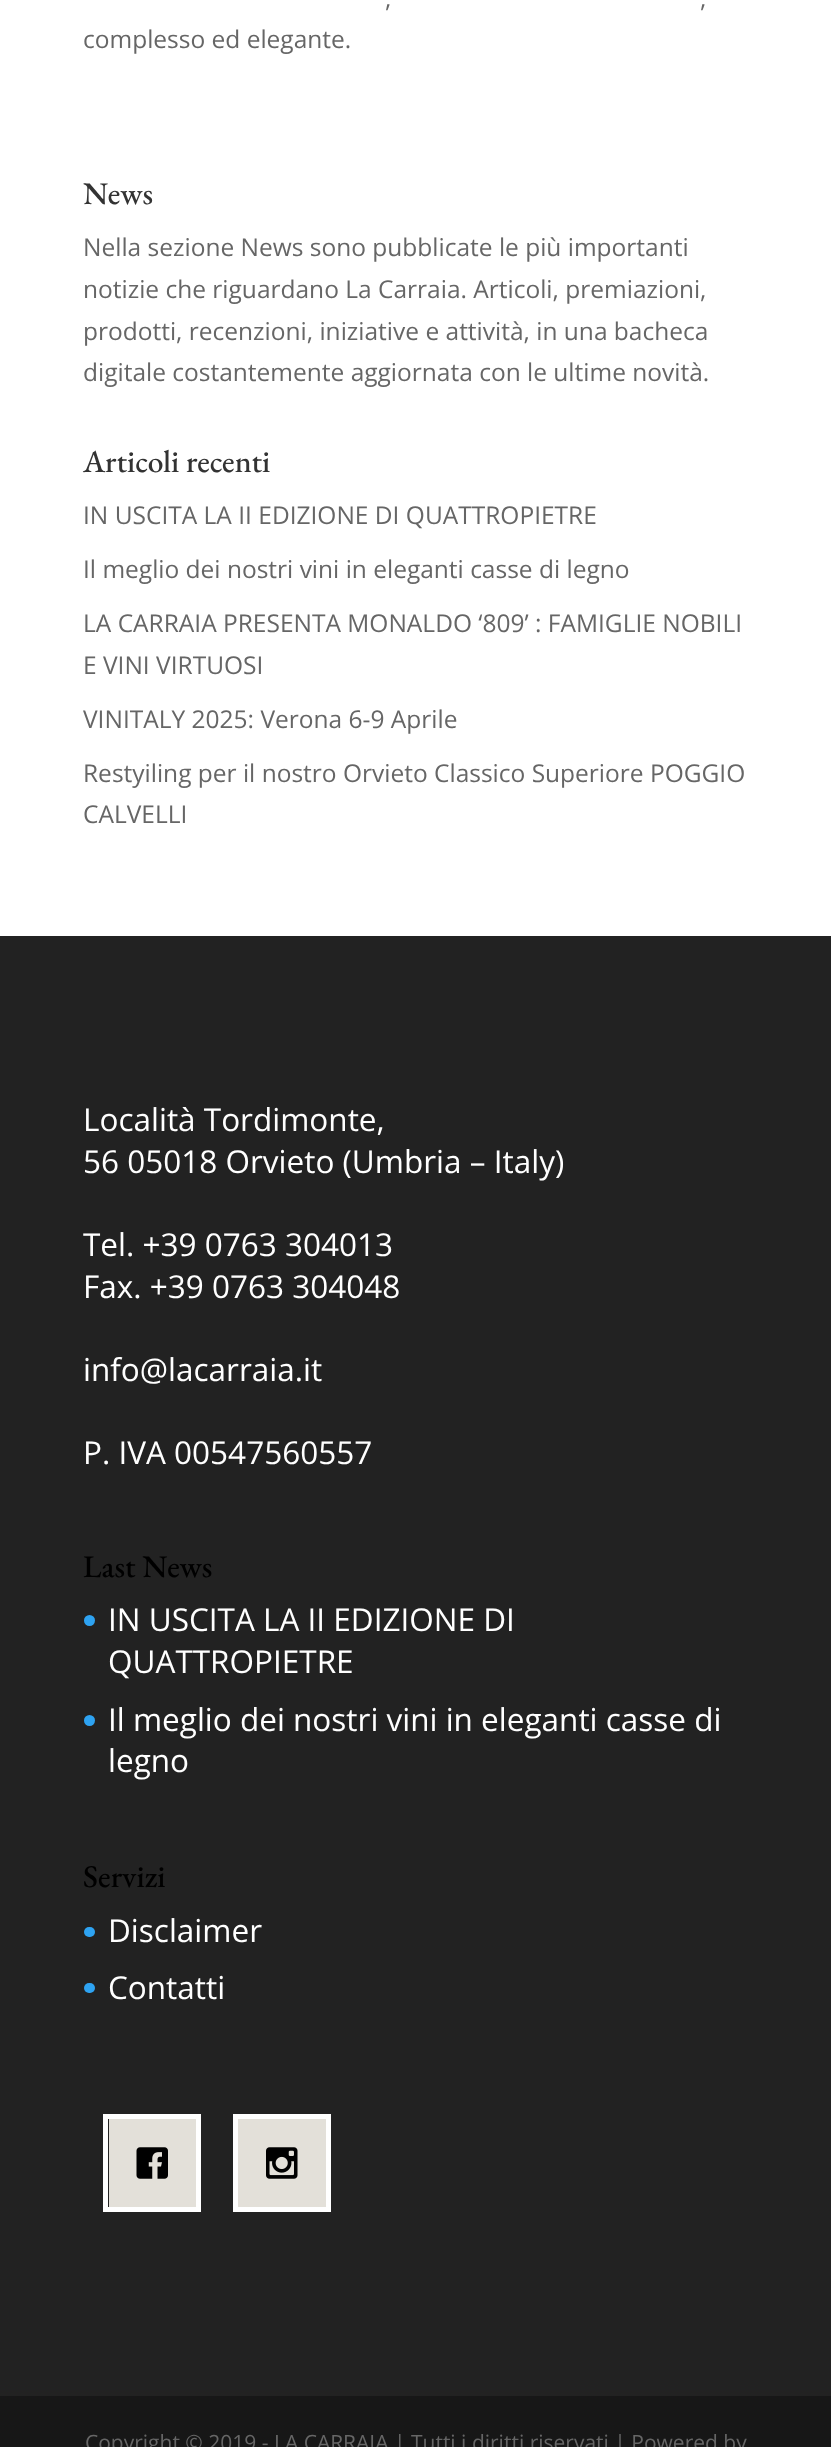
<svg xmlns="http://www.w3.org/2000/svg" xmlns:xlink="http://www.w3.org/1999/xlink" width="831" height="2447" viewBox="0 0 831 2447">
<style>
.cls-1{font:24.5px Open Sans;fill:#666666}
.cls-2{font:500 31.5px EB Garamond;fill:#333333}
.cls-3{font:31.5px Open Sans;fill:#ffffff}
.cls-4{font:500 31.5px EB Garamond;fill:#000000}
.cls-5{font:21px Open Sans;fill:#666666}
</style>
<rect width="100%" height="100%" fill="#ffffff"/>
<rect fill="#222222" x="0" y="936" width="831" height="1460"/>
<circle fill="#2ea3f2" cx="89.5" cy="1620.5" r="5.5"/>
<circle fill="#2ea3f2" cx="89.5" cy="1720.5" r="5.5"/>
<rect fill="#2ea3f2" x="84" y="1927" width="11" height="10" rx="5"/>
<rect fill="#2ea3f2" x="84" y="1983" width="11" height="10" rx="5"/>
<rect fill="#e3e0d9" x="109" y="2119" width="87" height="88"/>
<image xlink:href="image0.png" x="136" y="2147" width="32" height="32"/>
<rect fill="none" stroke="#ffffff" stroke-width="5" x="105.5" y="2116.5" width="93" height="93"/>
<rect fill="#e3e0d9" x="238" y="2119" width="88" height="88"/>
<image xlink:href="image1.png" x="266" y="2147" width="32" height="32"/>
<rect fill="none" stroke="#ffffff" stroke-width="5" x="235.5" y="2116.5" width="93" height="93"/>
<rect fill="#171717" x="0" y="2396" width="831" height="51"/>
<text class="cls-1" x="385" y="7">,</text>
<text class="cls-1" x="700" y="7">,</text>
<text class="cls-1" x="83" y="48">complesso ed elegante.</text>
<text class="cls-2" x="83" y="204">News</text>
<text class="cls-1"><tspan x="83" y="256">Nella sezione News sono pubblicate le più importanti</tspan><tspan x="83" y="298">notizie che riguardano La Carraia. Articoli, premiazioni,</tspan><tspan x="83" y="340">prodotti, recenzioni, iniziative e attività, in una bacheca</tspan><tspan x="83" y="381">digitale costantemente aggiornata con le ultime novità.</tspan></text>
<text class="cls-2" x="83" y="472">Articoli recenti</text>
<text class="cls-1" x="83" y="524">IN USCITA LA II EDIZIONE DI QUATTROPIETRE</text>
<text class="cls-1" x="83" y="578">Il meglio dei nostri vini in eleganti casse di legno</text>
<text class="cls-1"><tspan x="83" y="632">LA CARRAIA PRESENTA MONALDO ‘809’ : FAMIGLIE NOBILI</tspan><tspan x="83" y="674">E VINI VIRTUOSI</tspan></text>
<text class="cls-1" x="83" y="728">VINITALY 2025: Verona 6-9 Aprile</text>
<text class="cls-1"><tspan x="83" y="782">Restyiling per il nostro Orvieto Classico Superiore POGGIO</tspan><tspan x="83" y="823">CALVELLI</tspan></text>
<text class="cls-3"><tspan x="83" y="1131">Località Tordimonte,</tspan><tspan x="83" y="1173">56 05018 Orvieto (Umbria – Italy)</tspan></text>
<text class="cls-3"><tspan x="83" y="1256">Tel. +39 0763 304013</tspan><tspan x="83" y="1298">Fax. +39 0763 304048</tspan></text>
<text class="cls-3" x="83" y="1381">info@lacarraia.it</text>
<text class="cls-3" x="83" y="1464">P. IVA 00547560557</text>
<text class="cls-4" x="83" y="1577">Last News</text>
<text class="cls-3"><tspan x="108" y="1631">IN USCITA LA II EDIZIONE DI</tspan><tspan x="108" y="1673">QUATTROPIETRE</tspan><tspan x="108" y="1731">Il meglio dei nostri vini in eleganti casse di</tspan><tspan x="108" y="1772">legno</tspan></text>
<text class="cls-4" x="83" y="1887">Servizi</text>
<text class="cls-3"><tspan x="108" y="1942">Disclaimer</tspan><tspan x="108" y="1999">Contatti</tspan></text>
<text class="cls-5" x="85" y="2450">Copyright © 2019 - LA CARRAIA | Tutti i diritti riservati | Powered by</text>
</svg>
